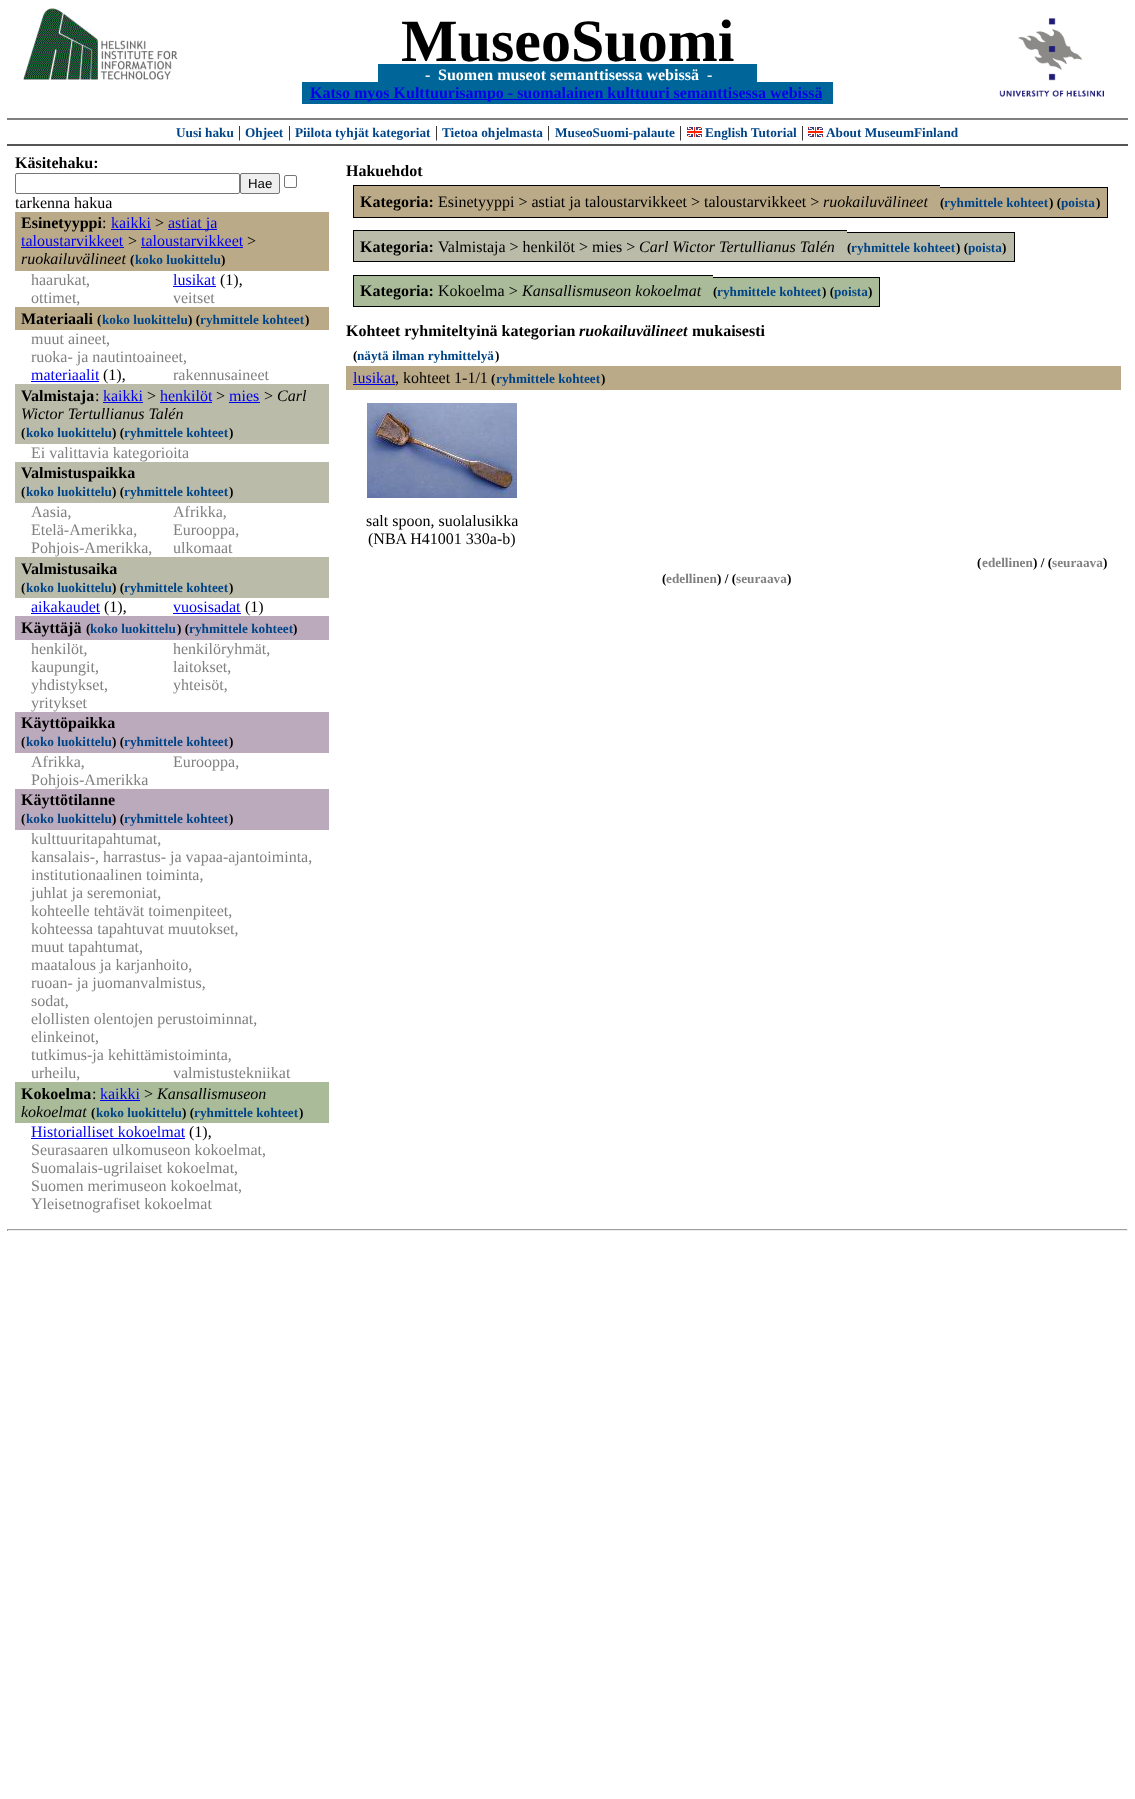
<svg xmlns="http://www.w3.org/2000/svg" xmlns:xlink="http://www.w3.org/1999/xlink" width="1135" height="1799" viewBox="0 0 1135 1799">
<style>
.cls-1{font:bold 60px Liberation Serif;fill:#000000}
.cls-2{font:bold 16px Liberation Serif;fill:#ffffff}
.cls-3{font:bold 16px Liberation Serif;fill:#0000ee}
.cls-4{font:bold 13.25px Liberation Serif;fill:#004488}
.cls-5{font:16px Liberation Serif;fill:#000000}
.cls-6{font:bold 16px Liberation Serif;fill:#000000}
.cls-7{font:13.25px Liberation Sans;fill:#000000}
.cls-8{font:16px Liberation Serif;fill:#0000ee}
.cls-9{font:italic 16px Liberation Serif;fill:#000000}
.cls-10{font:bold 13.25px Liberation Serif;fill:#000000}
.cls-11{font:16px Liberation Serif;fill:#808080}
.cls-12{font:italic bold 16px Liberation Serif;fill:#000000}
.cls-13{font:bold 13.25px Liberation Serif;fill:#808080}
</style>
<rect width="100%" height="100%" fill="#ffffff"/>
<image xlink:href="image0.png" x="23" y="8" width="155" height="72"/>
<image xlink:href="image1.png" x="999" y="18" width="105" height="79"/>
<rect fill="#006699" x="378" y="64" width="379" height="18"/>
<rect fill="#006699" x="302" y="82" width="531" height="22"/>
<rect fill="#0000ee" x="310" y="99" width="512" height="1"/>
<rect fill="#808080" x="7" y="118" width="1121" height="2"/>
<rect fill="#555555" x="7" y="144" width="1121" height="2"/>
<image xlink:href="image2.png" x="687" y="127" width="15" height="10"/>
<image xlink:href="image2.png" x="808" y="127" width="15" height="10"/>
<rect fill="none" stroke="#767676" x="15.5" y="173.5" width="224" height="20" rx="1.5"/>
<rect fill="#efefef" stroke="#767676" x="240.5" y="173.5" width="39" height="20" rx="1.5"/>
<rect fill="none" stroke="#767676" x="284.5" y="175.5" width="12" height="12" rx="1.5"/>
<rect fill="#bbaa88" x="15" y="212" width="314" height="59"/>
<rect fill="#0000ee" x="111" y="229" width="40" height="1"/>
<rect fill="#0000ee" x="168" y="229" width="49" height="1"/>
<rect fill="#0000ee" x="21" y="247" width="103" height="1"/>
<rect fill="#0000ee" x="141" y="247" width="102" height="1"/>
<rect fill="#0000ee" x="173" y="286" width="43" height="1"/>
<rect fill="#bbaa88" x="15" y="307" width="314" height="23"/>
<rect fill="#0000ee" x="31" y="381" width="68" height="1"/>
<rect fill="#bbbbaa" x="15" y="384" width="314" height="60"/>
<rect fill="#0000ee" x="103" y="402" width="40" height="1"/>
<rect fill="#0000ee" x="160" y="402" width="52" height="1"/>
<rect fill="#0000ee" x="229" y="402" width="31" height="1"/>
<rect fill="#bbbbaa" x="15" y="462" width="314" height="41"/>
<rect fill="#bbbbaa" x="15" y="557" width="314" height="41"/>
<rect fill="#0000ee" x="31" y="613" width="69" height="1"/>
<rect fill="#0000ee" x="173" y="613" width="68" height="1"/>
<rect fill="#bbaabb" x="15" y="616" width="314" height="24"/>
<rect fill="#bbaabb" x="15" y="712" width="314" height="41"/>
<rect fill="#bbaabb" x="15" y="789" width="314" height="41"/>
<rect fill="#aabb99" x="15" y="1082" width="314" height="41"/>
<rect fill="#0000ee" x="100" y="1100" width="40" height="1"/>
<rect fill="#0000ee" x="31" y="1138" width="154" height="1"/>
<rect fill="#000000" x="353" y="185" width="587" height="1"/>
<rect fill="#000000" x="353" y="217" width="587" height="1"/>
<rect fill="#000000" x="353" y="185" width="1" height="33"/>
<rect fill="#bbaa88" x="354" y="186" width="586" height="31"/>
<rect fill="#bbaa88" x="940" y="187" width="4" height="31"/>
<rect fill="#000000" x="940" y="187" width="109" height="1"/>
<rect fill="#000000" x="940" y="217" width="109" height="1"/>
<rect fill="#bbaa88" x="944" y="188" width="105" height="29"/>
<rect fill="#bbaa88" x="1049" y="187" width="12" height="31"/>
<rect fill="#000000" x="1049" y="187" width="59" height="1"/>
<rect fill="#000000" x="1049" y="217" width="47" height="1"/>
<rect fill="#bbaa88" x="1061" y="188" width="46" height="29"/>
<rect fill="#000000" x="1107" y="187" width="1" height="31"/>
<rect fill="#000000" x="1096" y="217" width="12" height="1"/>
<rect fill="#000000" x="353" y="230" width="494" height="1"/>
<rect fill="#000000" x="353" y="261" width="494" height="1"/>
<rect fill="#000000" x="353" y="230" width="1" height="32"/>
<rect fill="#bbbbaa" x="354" y="231" width="493" height="30"/>
<rect fill="#bbbbaa" x="847" y="232" width="4" height="30"/>
<rect fill="#000000" x="847" y="232" width="109" height="1"/>
<rect fill="#000000" x="847" y="261" width="109" height="1"/>
<rect fill="#bbbbaa" x="851" y="233" width="105" height="28"/>
<rect fill="#bbbbaa" x="956" y="232" width="12" height="30"/>
<rect fill="#000000" x="956" y="232" width="59" height="1"/>
<rect fill="#000000" x="956" y="261" width="46" height="1"/>
<rect fill="#bbbbaa" x="968" y="233" width="46" height="28"/>
<rect fill="#000000" x="1014" y="232" width="1" height="30"/>
<rect fill="#000000" x="1002" y="261" width="13" height="1"/>
<rect fill="#000000" x="353" y="275" width="360" height="1"/>
<rect fill="#000000" x="353" y="306" width="360" height="1"/>
<rect fill="#000000" x="353" y="275" width="1" height="32"/>
<rect fill="#aabb99" x="354" y="276" width="359" height="30"/>
<rect fill="#aabb99" x="713" y="277" width="4" height="30"/>
<rect fill="#000000" x="713" y="277" width="109" height="1"/>
<rect fill="#000000" x="713" y="306" width="109" height="1"/>
<rect fill="#aabb99" x="717" y="278" width="105" height="28"/>
<rect fill="#aabb99" x="822" y="277" width="12" height="30"/>
<rect fill="#000000" x="822" y="277" width="58" height="1"/>
<rect fill="#000000" x="822" y="306" width="46" height="1"/>
<rect fill="#aabb99" x="834" y="278" width="45" height="28"/>
<rect fill="#000000" x="879" y="277" width="1" height="30"/>
<rect fill="#000000" x="868" y="306" width="12" height="1"/>
<rect fill="#bbaa88" x="346" y="366" width="775" height="24"/>
<rect fill="#0000ee" x="353" y="384" width="42" height="1"/>
<image xlink:href="image3.png" x="367" y="403" width="150" height="95"/>
<rect fill="#9f9f9f" x="7" y="1229" width="1121" height="1"/>
<rect fill="#eeeeee" x="1127" y="1229" width="1" height="2"/>
<rect fill="#eeeeee" x="7" y="1230" width="1121" height="1"/>
<rect fill="#9f9f9f" x="7" y="1229" width="1" height="2"/>
<text class="cls-1" x="401" y="61">MuseoSuomi</text>
<text class="cls-2" x="425" y="80">-</text>
<text class="cls-2" x="438" y="80">Suomen museot semanttisessa webissä</text>
<text class="cls-2" x="707" y="80">-</text>
<text class="cls-3" x="310" y="98">Katso myos Kulttuurisampo - suomalainen kulttuuri semanttisessa webissä</text>
<text class="cls-4" x="176" y="137">Uusi haku</text>
<text class="cls-5" x="238" y="137">|</text>
<text class="cls-4" x="245" y="137">Ohjeet</text>
<text class="cls-5" x="288" y="137">|</text>
<text class="cls-4" x="295" y="137">Piilota tyhjät kategoriat</text>
<text class="cls-5" x="435" y="137">|</text>
<text class="cls-4" x="442" y="137">Tietoa ohjelmasta</text>
<text class="cls-5" x="547" y="137">|</text>
<text class="cls-4" x="555" y="137">MuseoSuomi-palaute</text>
<text class="cls-5" x="679" y="137">|</text>
<text class="cls-4" x="705" y="137">English Tutorial</text>
<text class="cls-5" x="801" y="137">|</text>
<text class="cls-4" x="826" y="137">About MuseumFinland</text>
<text class="cls-6" x="15" y="168">Käsitehaku:</text>
<text class="cls-7" x="248" y="188">Hae</text>
<text class="cls-5" x="15" y="208">tarkenna hakua</text>
<text class="cls-6" x="21" y="228">Esinetyyppi</text>
<text class="cls-5" x="102" y="228">:</text>
<text class="cls-8" x="111" y="228">kaikki</text>
<text class="cls-5" x="155" y="228">&gt;</text>
<text class="cls-8" x="168" y="228">astiat ja</text>
<text class="cls-8" x="21" y="246">taloustarvikkeet</text>
<text class="cls-5" x="128" y="246">&gt;</text>
<text class="cls-8" x="141" y="246">taloustarvikkeet</text>
<text class="cls-5" x="247" y="246">&gt;</text>
<text class="cls-9" x="21" y="264">ruokailuvälineet</text>
<text class="cls-10" x="130" y="264">(</text>
<text class="cls-4" x="135" y="264">koko luokittelu</text>
<text class="cls-10" x="221" y="264">)</text>
<text class="cls-11" x="31" y="285">haarukat,</text>
<text class="cls-8" x="173" y="285">lusikat</text>
<text class="cls-5" x="220" y="285">(1),</text>
<text class="cls-11" x="31" y="303">ottimet,</text>
<text class="cls-11" x="173" y="303">veitset</text>
<text class="cls-6" x="21" y="324">Materiaali</text>
<text class="cls-10" x="97" y="324">(</text>
<text class="cls-4" x="102" y="324">koko luokittelu</text>
<text class="cls-10" x="188" y="324">) (</text>
<text class="cls-4" x="200" y="324">ryhmittele kohteet</text>
<text class="cls-10" x="305" y="324">)</text>
<text class="cls-11"><tspan x="31" y="344">muut aineet,</tspan><tspan x="31" y="362">ruoka- ja nautintoaineet,</tspan></text>
<text class="cls-8" x="31" y="380">materiaalit</text>
<text class="cls-5" x="103" y="380">(1),</text>
<text class="cls-11" x="173" y="380">rakennusaineet</text>
<text class="cls-6" x="21" y="401">Valmistaja</text>
<text class="cls-5" x="95" y="401">:</text>
<text class="cls-8" x="103" y="401">kaikki</text>
<text class="cls-5" x="147" y="401">&gt;</text>
<text class="cls-8" x="160" y="401">henkilöt</text>
<text class="cls-5" x="216" y="401">&gt;</text>
<text class="cls-8" x="229" y="401">mies</text>
<text class="cls-5" x="264" y="401">&gt;</text>
<text class="cls-9" x="277" y="401">Carl</text>
<text class="cls-9" x="21" y="419">Wictor Tertullianus Talén</text>
<text class="cls-10" x="21" y="437">(</text>
<text class="cls-4" x="26" y="437">koko luokittelu</text>
<text class="cls-10" x="112" y="437">) (</text>
<text class="cls-4" x="124" y="437">ryhmittele kohteet</text>
<text class="cls-10" x="229" y="437">)</text>
<text class="cls-11" x="31" y="458">Ei valittavia kategorioita</text>
<text class="cls-6" x="21" y="478">Valmistuspaikka</text>
<text class="cls-10" x="21" y="496">(</text>
<text class="cls-4" x="26" y="496">koko luokittelu</text>
<text class="cls-10" x="112" y="496">) (</text>
<text class="cls-4" x="124" y="496">ryhmittele kohteet</text>
<text class="cls-10" x="229" y="496">)</text>
<text class="cls-11" x="31" y="517">Aasia,</text>
<text class="cls-11" x="173" y="517">Afrikka,</text>
<text class="cls-11" x="31" y="535">Etelä-Amerikka,</text>
<text class="cls-11" x="173" y="535">Eurooppa,</text>
<text class="cls-11" x="31" y="553">Pohjois-Amerikka,</text>
<text class="cls-11" x="173" y="553">ulkomaat</text>
<text class="cls-6" x="21" y="574">Valmistusaika</text>
<text class="cls-10" x="21" y="592">(</text>
<text class="cls-4" x="26" y="592">koko luokittelu</text>
<text class="cls-10" x="112" y="592">) (</text>
<text class="cls-4" x="124" y="592">ryhmittele kohteet</text>
<text class="cls-10" x="229" y="592">)</text>
<text class="cls-8" x="31" y="612">aikakaudet</text>
<text class="cls-5" x="104" y="612">(1),</text>
<text class="cls-8" x="173" y="612">vuosisadat</text>
<text class="cls-5" x="245" y="612">(1)</text>
<text class="cls-6" x="21" y="633">Käyttäjä</text>
<text class="cls-10" x="86" y="633">(</text>
<text class="cls-4" x="90" y="633">koko luokittelu</text>
<text class="cls-10" x="177" y="633">) (</text>
<text class="cls-4" x="189" y="633">ryhmittele kohteet</text>
<text class="cls-10" x="293" y="633">)</text>
<text class="cls-11" x="31" y="654">henkilöt,</text>
<text class="cls-11" x="173" y="654">henkilöryhmät,</text>
<text class="cls-11" x="31" y="672">kaupungit,</text>
<text class="cls-11" x="173" y="672">laitokset,</text>
<text class="cls-11" x="31" y="690">yhdistykset,</text>
<text class="cls-11" x="173" y="690">yhteisöt,</text>
<text class="cls-11" x="31" y="708">yritykset</text>
<text class="cls-6" x="21" y="728">Käyttöpaikka</text>
<text class="cls-10" x="21" y="746">(</text>
<text class="cls-4" x="26" y="746">koko luokittelu</text>
<text class="cls-10" x="112" y="746">) (</text>
<text class="cls-4" x="124" y="746">ryhmittele kohteet</text>
<text class="cls-10" x="229" y="746">)</text>
<text class="cls-11" x="31" y="767">Afrikka,</text>
<text class="cls-11" x="173" y="767">Eurooppa,</text>
<text class="cls-11" x="31" y="785">Pohjois-Amerikka</text>
<text class="cls-6" x="21" y="805">Käyttötilanne</text>
<text class="cls-10" x="21" y="823">(</text>
<text class="cls-4" x="26" y="823">koko luokittelu</text>
<text class="cls-10" x="112" y="823">) (</text>
<text class="cls-4" x="124" y="823">ryhmittele kohteet</text>
<text class="cls-10" x="229" y="823">)</text>
<text class="cls-11"><tspan x="31" y="844">kulttuuritapahtumat,</tspan><tspan x="31" y="862">kansalais-, harrastus- ja vapaa-ajantoiminta,</tspan><tspan x="31" y="880">institutionaalinen toiminta,</tspan><tspan x="31" y="898">juhlat ja seremoniat,</tspan><tspan x="31" y="916">kohteelle tehtävät toimenpiteet,</tspan><tspan x="31" y="934">kohteessa tapahtuvat muutokset,</tspan><tspan x="31" y="952">muut tapahtumat,</tspan><tspan x="31" y="970">maatalous ja karjanhoito,</tspan><tspan x="31" y="988">ruoan- ja juomanvalmistus,</tspan><tspan x="31" y="1006">sodat,</tspan><tspan x="31" y="1024">elollisten olentojen perustoiminnat,</tspan><tspan x="31" y="1042">elinkeinot,</tspan><tspan x="31" y="1060">tutkimus-ja kehittämistoiminta,</tspan><tspan x="31" y="1078">urheilu,</tspan></text>
<text class="cls-11" x="173" y="1078">valmistustekniikat</text>
<text class="cls-6" x="21" y="1099">Kokoelma</text>
<text class="cls-5" x="92" y="1099">:</text>
<text class="cls-8" x="100" y="1099">kaikki</text>
<text class="cls-5" x="144" y="1099">&gt;</text>
<text class="cls-9" x="157" y="1099">Kansallismuseon</text>
<text class="cls-9" x="21" y="1117">kokoelmat</text>
<text class="cls-10" x="91" y="1117">(</text>
<text class="cls-4" x="96" y="1117">koko luokittelu</text>
<text class="cls-10" x="182" y="1117">) (</text>
<text class="cls-4" x="194" y="1117">ryhmittele kohteet</text>
<text class="cls-10" x="299" y="1117">)</text>
<text class="cls-8" x="31" y="1137">Historialliset kokoelmat</text>
<text class="cls-5" x="189" y="1137">(1),</text>
<text class="cls-11"><tspan x="31" y="1155">Seurasaaren ulkomuseon kokoelmat,</tspan><tspan x="31" y="1173">Suomalais-ugrilaiset kokoelmat,</tspan><tspan x="31" y="1191">Suomen merimuseon kokoelmat,</tspan><tspan x="31" y="1209">Yleisetnografiset kokoelmat</tspan></text>
<text class="cls-6" x="346" y="176">Hakuehdot</text>
<text class="cls-6" x="360" y="207">Kategoria:</text>
<text class="cls-5" x="438" y="207">Esinetyyppi &gt; astiat ja taloustarvikkeet &gt; taloustarvikkeet &gt;</text>
<text class="cls-9" x="823" y="207">ruokailuvälineet</text>
<text class="cls-10" x="940" y="207">(</text>
<text class="cls-4" x="944" y="207">ryhmittele kohteet</text>
<text class="cls-10" x="1049" y="207">) (</text>
<text class="cls-4" x="1061" y="207">poista</text>
<text class="cls-10" x="1096" y="207">)</text>
<text class="cls-6" x="360" y="252">Kategoria:</text>
<text class="cls-5" x="438" y="252">Valmistaja &gt; henkilöt &gt; mies &gt;</text>
<text class="cls-9" x="639" y="252">Carl Wictor Tertullianus Talén</text>
<text class="cls-10" x="847" y="252">(</text>
<text class="cls-4" x="851" y="252">ryhmittele kohteet</text>
<text class="cls-10" x="956" y="252">) (</text>
<text class="cls-4" x="968" y="252">poista</text>
<text class="cls-10" x="1002" y="252">)</text>
<text class="cls-6" x="360" y="296">Kategoria:</text>
<text class="cls-5" x="438" y="296">Kokoelma &gt;</text>
<text class="cls-9" x="522" y="296">Kansallismuseon kokoelmat</text>
<text class="cls-10" x="713" y="296">(</text>
<text class="cls-4" x="717" y="296">ryhmittele kohteet</text>
<text class="cls-10" x="822" y="296">) (</text>
<text class="cls-4" x="834" y="296">poista</text>
<text class="cls-10" x="868" y="296">)</text>
<text class="cls-6" x="346" y="336">Kohteet ryhmiteltyinä kategorian</text>
<text class="cls-12" x="579" y="336">ruokailuvälineet</text>
<text class="cls-6" x="692" y="336">mukaisesti</text>
<text class="cls-10" x="353" y="360">(</text>
<text class="cls-4" x="357" y="360">näytä ilman ryhmittelyä</text>
<text class="cls-10" x="495" y="360">)</text>
<text class="cls-8" x="353" y="383">lusikat</text>
<text class="cls-5" x="395" y="383">, kohteet 1-1/1</text>
<text class="cls-10" x="491" y="383">(</text>
<text class="cls-4" x="496" y="383">ryhmittele kohteet</text>
<text class="cls-10" x="601" y="383">)</text>
<text class="cls-5" x="366" y="526">salt spoon, suolalusikka</text>
<text class="cls-5" x="368" y="544">(NBA H41001 330a-b)</text>
<text class="cls-10" x="977" y="567">(</text>
<text class="cls-13" x="982" y="567">edellinen</text>
<text class="cls-10" x="1033" y="567">) / (</text>
<text class="cls-13" x="1052" y="567">seuraava</text>
<text class="cls-10" x="1103" y="567">)</text>
<text class="cls-10" x="662" y="583">(</text>
<text class="cls-13" x="666" y="583">edellinen</text>
<text class="cls-10" x="717" y="583">) / (</text>
<text class="cls-13" x="736" y="583">seuraava</text>
<text class="cls-10" x="787" y="583">)</text>
</svg>
